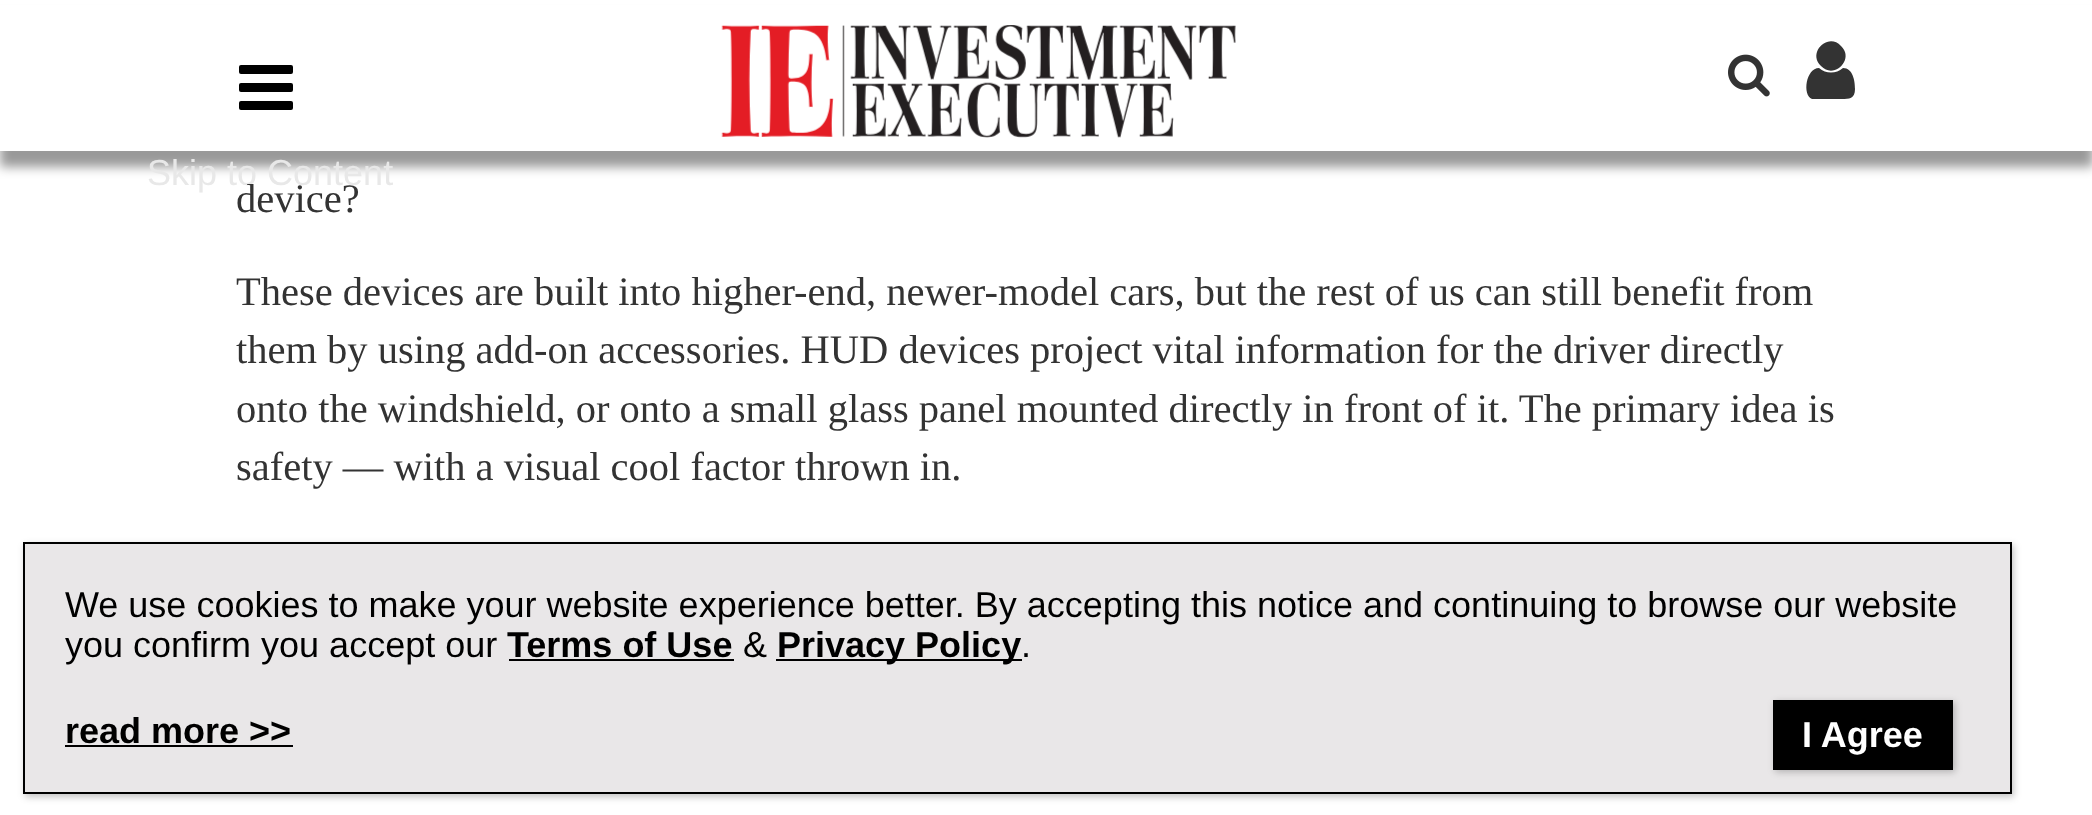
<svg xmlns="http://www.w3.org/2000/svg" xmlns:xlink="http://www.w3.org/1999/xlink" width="2092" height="815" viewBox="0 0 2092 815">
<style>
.cls-1{font:36px Liberation Sans;fill:#e8e8e8}
.cls-2{font:40.5px Tinos;fill:#333333}
.cls-3{font:36px Liberation Sans;fill:#000000}
.cls-4{font:bold 36px Liberation Sans;fill:#000000}
.cls-5{font:bold 36px Liberation Sans;fill:#ffffff}
</style>
<rect width="100%" height="100%" fill="#ffffff"/>
<rect fill="#000000" fill-opacity="0.4" filter="blur(5.5px)" x="0" y="16" width="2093" height="151"/>
<rect fill="#ffffff" x="0" y="5" width="2092" height="146"/>
<rect fill="#000000" x="239" y="65" width="54" height="9" rx="2"/>
<rect fill="#000000" x="239" y="83" width="54" height="9" rx="2"/>
<rect fill="#000000" x="239" y="101" width="54" height="9" rx="2"/>
<image xlink:href="image0.png" x="721" y="25" width="515" height="113"/>
<image xlink:href="image1.png" x="1728" y="54" width="42" height="43"/>
<path fill="#333333" d="M1855 89C1855 99 1849 99 1842 99H1812C1802 95 1806 68 1819 68C1826 74 1836 74 1843 68C1853 68 1855 81 1855 89ZM1841 46C1855 59 1834 80 1821 66C1807 53 1828 32 1841 46Z"/>
<rect fill="#020202" fill-opacity="0.23" filter="blur(3.5px)" x="25" y="545" width="1989" height="252"/>
<rect fill="#e9e7e8" stroke="#000000" stroke-width="2" x="24" y="543" width="1987" height="250"/>
<rect fill="#000000" x="509" y="659" width="225" height="2"/>
<rect fill="#000000" x="776" y="659" width="246" height="2"/>
<rect fill="#000000" x="65" y="745" width="228" height="2"/>
<rect fill="#020202" fill-opacity="0.23" filter="blur(3.5px)" x="1775" y="702" width="180" height="70"/>
<rect fill="#000000" x="1773" y="700" width="180" height="70"/>
<text class="cls-1" x="147" y="185">Skip to Content</text>
<text class="cls-2" x="236" y="212">device?</text>
<text class="cls-2"><tspan x="236" y="305">These devices are built into higher-end, newer-model cars, but the rest of us can still benefit from</tspan><tspan x="236" y="363">them by using add-on accessories. HUD devices project vital information for the driver directly</tspan><tspan x="236" y="422">onto the windshield, or onto a small glass panel mounted directly in front of it. The primary idea is</tspan><tspan x="236" y="480">safety — with a visual cool factor thrown in.</tspan></text>
<text class="cls-3"><tspan x="65" y="617">We use cookies to make your website experience better. By accepting this notice and continuing to browse our website</tspan><tspan x="65" y="657">you confirm you accept our</tspan></text>
<text class="cls-4" x="507" y="657">Terms of Use</text>
<text class="cls-3" x="743" y="657">&amp;</text>
<text class="cls-4" x="777" y="657">Privacy Policy</text>
<text class="cls-3" x="1021" y="657">.</text>
<text class="cls-4" x="65" y="743">read more &gt;&gt;</text>
<text class="cls-5" x="1802" y="747">I Agree</text>
</svg>
